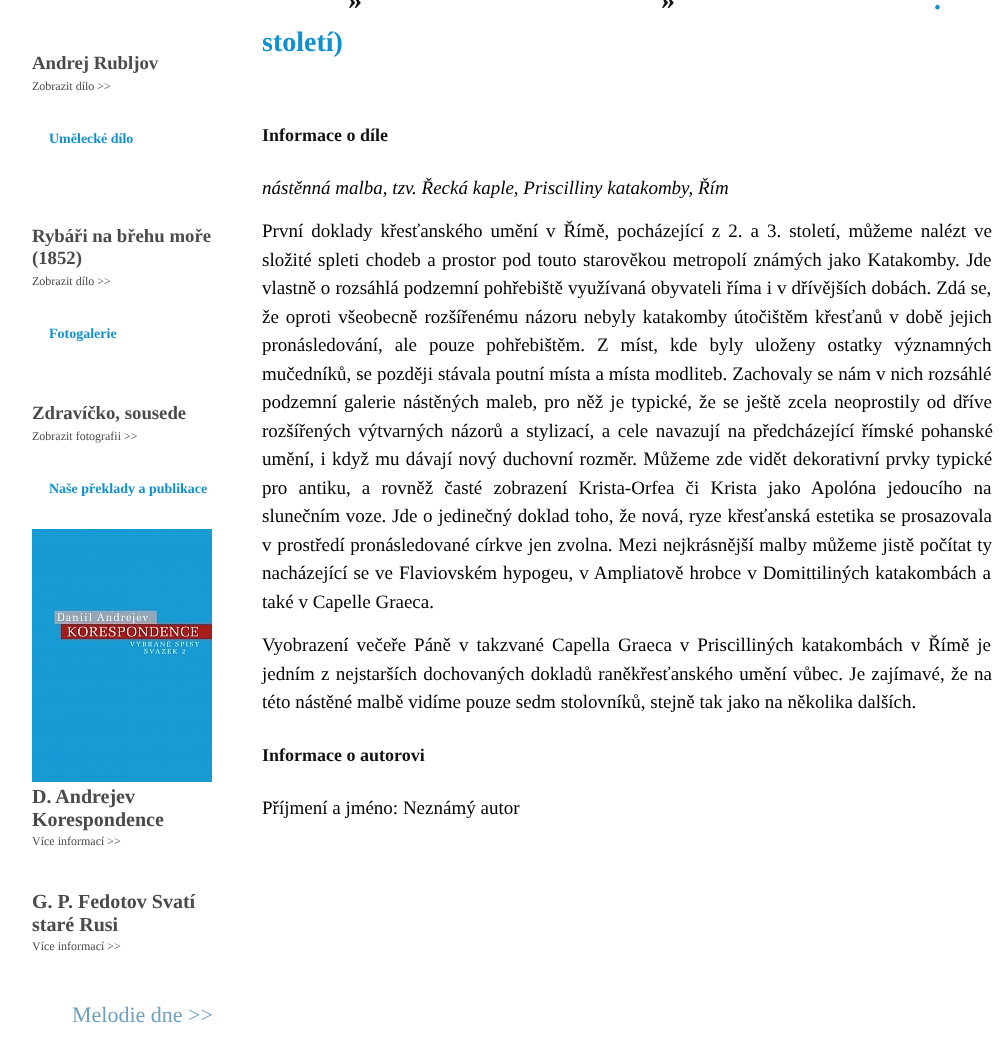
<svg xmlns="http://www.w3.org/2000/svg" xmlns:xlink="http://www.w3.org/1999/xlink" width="1004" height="1062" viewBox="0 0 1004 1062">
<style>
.cls-1{font:bold 18.75px Liberation Serif;fill:#4a4a4a}
.cls-2{font:12px Liberation Serif;fill:#4a4a4a}
.cls-3{font:bold 14px Liberation Serif;fill:#1190cf}
.cls-4{font:bold 20px Liberation Serif;fill:#4a4a4a}
.cls-5{font:22px Liberation Serif;fill:#6fa0bc}
.cls-6{font:bold 28px Liberation Serif;fill:#121212}
.cls-7{font:bold 28px Liberation Serif;fill:#1190cf}
.cls-8{font:bold 18px Liberation Serif;fill:#121212}
.cls-9{font:italic 19px Liberation Serif;fill:#000000}
.cls-10{font:19px Liberation Serif;fill:#000000}
</style>
<rect width="100%" height="100%" fill="#ffffff"/>
<image xlink:href="image0.png" x="32" y="529" width="180" height="253"/>
<text class="cls-1" x="32" y="69">Andrej Rubljov</text>
<text class="cls-2" x="32" y="90">Zobrazit dílo &gt;&gt;</text>
<text class="cls-3" x="49" y="143">Umělecké dílo</text>
<text class="cls-1"><tspan x="32" y="242">Rybáři na břehu moře</tspan><tspan x="32" y="264">(1852)</tspan></text>
<text class="cls-2" x="32" y="285">Zobrazit dílo &gt;&gt;</text>
<text class="cls-3" x="49" y="338">Fotogalerie</text>
<text class="cls-1" x="32" y="419">Zdravíčko, sousede</text>
<text class="cls-2" x="32" y="440">Zobrazit fotografii &gt;&gt;</text>
<text class="cls-3" x="49" y="493">Naše překlady a publikace</text>
<text class="cls-4"><tspan x="32" y="803">D. Andrejev</tspan><tspan x="32" y="826">Korespondence</tspan></text>
<text class="cls-2" x="32" y="845">Více informací &gt;&gt;</text>
<text class="cls-4"><tspan x="32" y="908">G. P. Fedotov Svatí</tspan><tspan x="32" y="931">staré Rusi</tspan></text>
<text class="cls-2" x="32" y="950">Více informací &gt;&gt;</text>
<text class="cls-5" x="72" y="1022">Melodie dne &gt;&gt;</text>
<text class="cls-6" x="348" y="9">»</text>
<text class="cls-6" x="661" y="9">»</text>
<text class="cls-7" x="934" y="9">.</text>
<text class="cls-7" x="262" y="51">století)</text>
<text class="cls-8" x="262" y="141">Informace o díle</text>
<text class="cls-9" x="262" y="194">nástěnná malba, tzv. Řecká kaple, Priscilliny katakomby, Řím</text>
<text class="cls-10"><tspan x="262" y="237" word-spacing="3.25">První doklady křesťanského umění v Římě, pocházející z 2. a 3. století, můžeme nalézt ve</tspan><tspan x="262" y="266" word-spacing="1.75">složité spleti chodeb a prostor pod touto starověkou metropolí známých jako Katakomby. Jde</tspan><tspan x="262" y="294" word-spacing="0.3">vlastně o rozsáhlá podzemní pohřebiště využívaná obyvateli říma i v dřívějších dobách. Zdá se,</tspan><tspan x="262" y="323" word-spacing="2.25">že oproti všeobecně rozšířenému názoru nebyly katakomby útočištěm křesťanů v době jejich</tspan><tspan x="262" y="351" word-spacing="7.25">pronásledování, ale pouze pohřebištěm. Z míst, kde byly uloženy ostatky významných</tspan><tspan x="262" y="380" word-spacing="0.25">mučedníků, se později stávala poutní místa a místa modliteb. Zachovaly se nám v nich rozsáhlé</tspan><tspan x="262" y="408" word-spacing="2.4">podzemní galerie nástěných maleb, pro něž je typické, že se ještě zcela neoprostily od dříve</tspan><tspan x="262" y="437" word-spacing="2.75">rozšířených výtvarných názorů a stylizací, a cele navazují na předcházející římské pohanské</tspan><tspan x="262" y="465" word-spacing="1.5">umění, i když mu dávají nový duchovní rozměr. Můžeme zde vidět dekorativní prvky typické</tspan><tspan x="262" y="494" word-spacing="6.4">pro antiku, a rovněž časté zobrazení Krista-Orfea či Krista jako Apolóna jedoucího na</tspan><tspan x="262" y="522" word-spacing="0.9">slunečním voze. Jde o jedinečný doklad toho, že nová, ryze křesťanská estetika se prosazovala</tspan><tspan x="262" y="551" word-spacing="0.9">v prostředí pronásledované církve jen zvolna. Mezi nejkrásnější malby můžeme jistě počítat ty</tspan><tspan x="262" y="579" word-spacing="1.25">nacházející se</tspan></text>
<text class="cls-10" x="375" y="579" word-spacing="1.25">ve Flaviovském hypogeu, v Ampliatově hrobce v Domittiliných katakombách a</text>
<text class="cls-10" x="262" y="608">také v Capelle Graeca.</text>
<text class="cls-10"><tspan x="262" y="651" word-spacing="3.25">Vyobrazení večeře Páně v takzvané Capella Graeca v Priscilliných katakombách v Římě je</tspan><tspan x="262" y="680" word-spacing="1.5">jedním z nejstarších dochovaných dokladů raněkřesťanského umění vůbec. Je zajímavé, že na</tspan><tspan x="262" y="708">této nástěné malbě vidíme pouze sedm stolovníků, stejně tak jako na několika dalších.</tspan></text>
<text class="cls-8" x="262" y="761">Informace o autorovi</text>
<text class="cls-10" x="262" y="814">Příjmení a jméno: Neznámý autor</text>
</svg>
